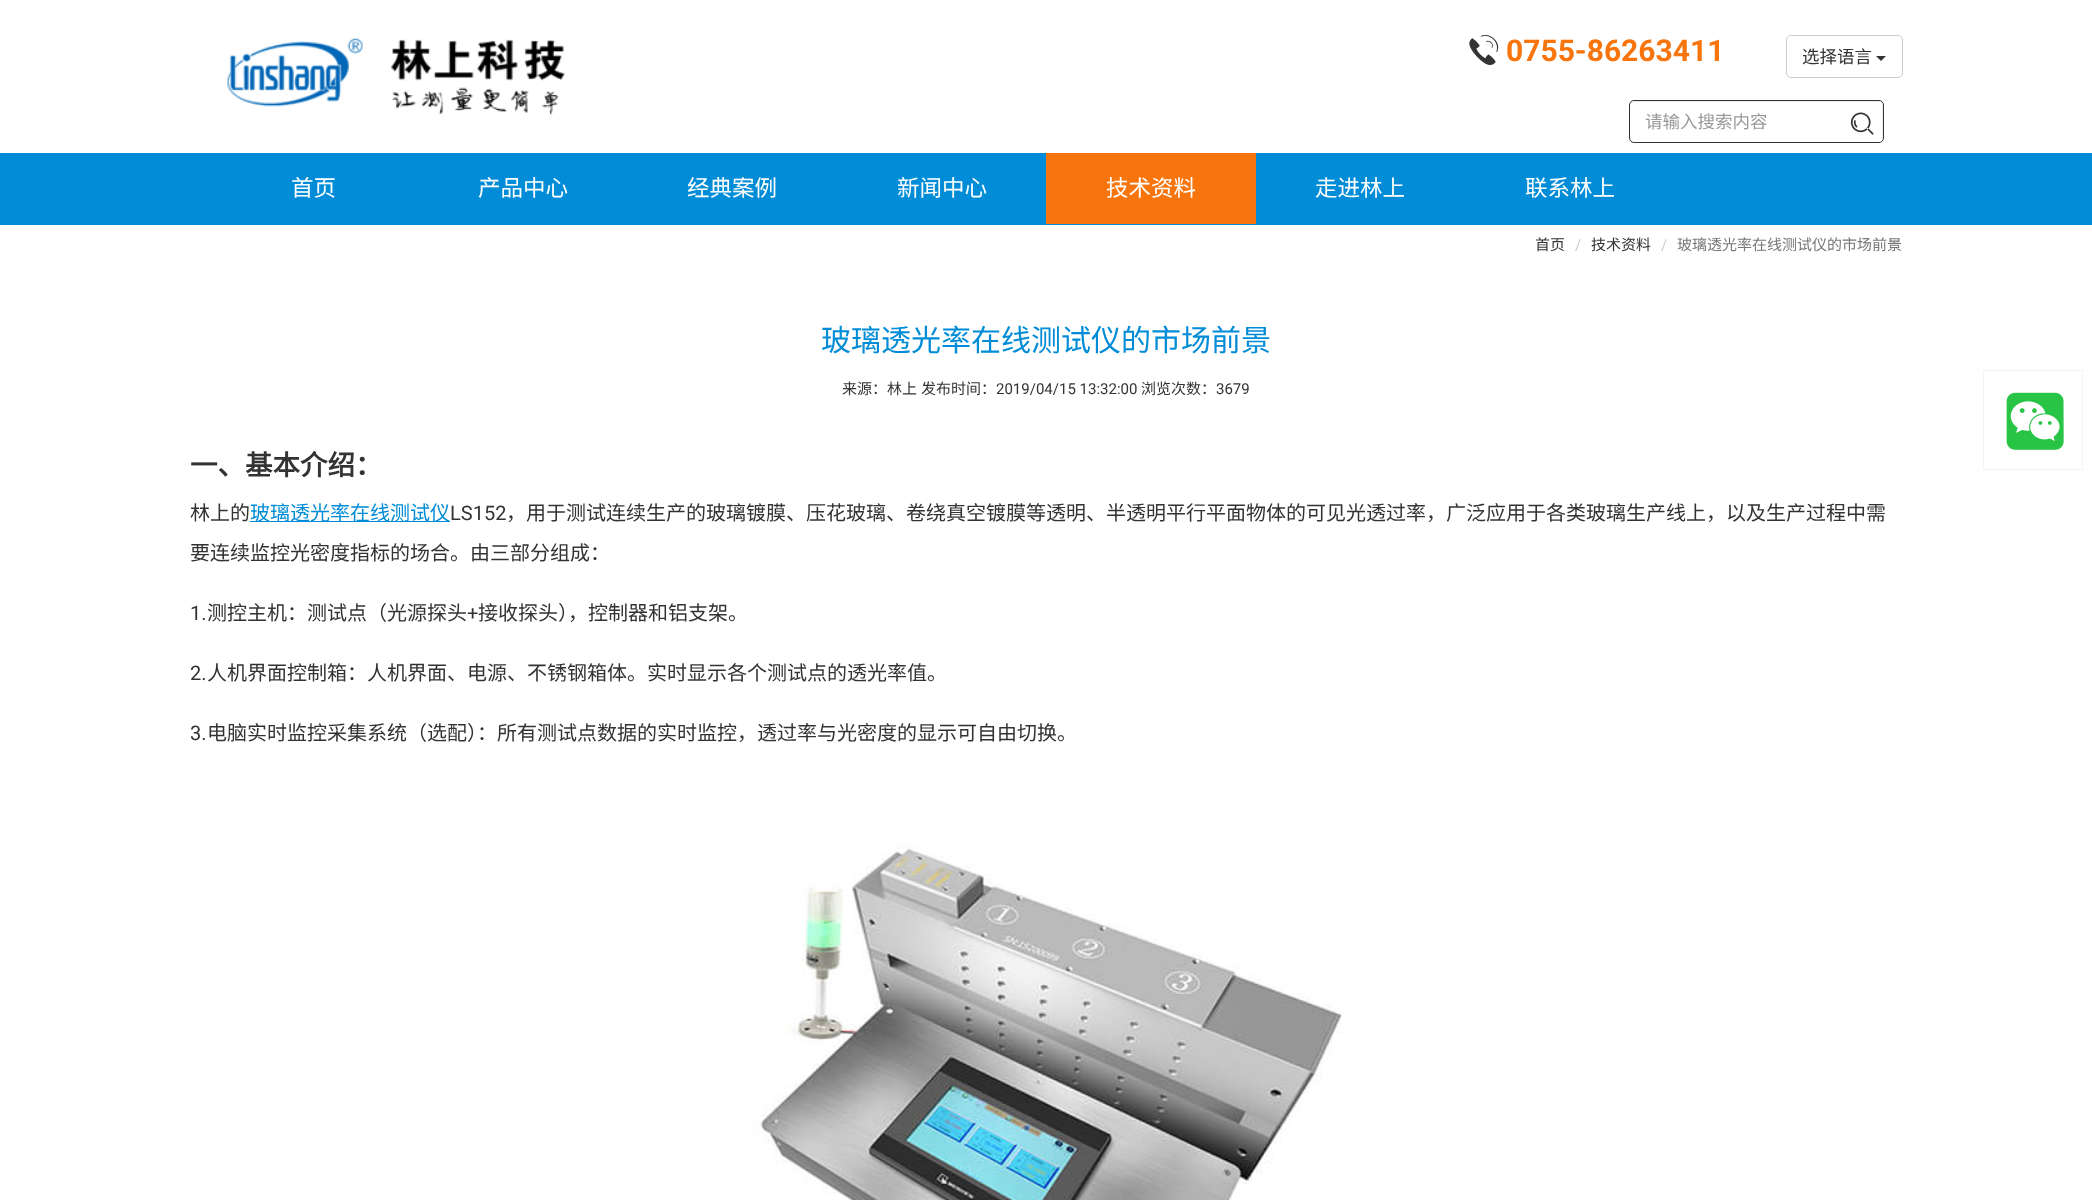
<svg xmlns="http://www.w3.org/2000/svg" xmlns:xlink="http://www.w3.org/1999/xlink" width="2092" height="1200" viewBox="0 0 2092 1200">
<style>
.cls-1{font:bold 30px Roboto;fill:#f7750c}
.cls-2{font:17.5px Noto Sans CJK SC;fill:#333333}
.cls-3{font:17.5px Noto Sans CJK SC;fill:#999999}
.cls-4{font:22.5px Noto Sans CJK SC;fill:#ffffff}
.cls-5{font:15px Noto Sans CJK SC;fill:#333333}
.cls-6{font:15px Roboto;fill:#cccccc}
.cls-7{font:15px Noto Sans CJK SC;fill:#777777}
.cls-8{font:30px Noto Sans CJK SC;fill:#008cd7}
.cls-9{font:15px Roboto;fill:#333333}
.cls-10{font:bold 27.5px Noto Sans CJK SC;fill:#333333}
.cls-11{font:20px Noto Sans CJK SC;fill:#333333}
.cls-12{font:20px Noto Sans CJK SC;fill:#008cd7}
.cls-13{font:20px Roboto;fill:#333333}
</style>
<rect width="100%" height="100%" fill="#ffffff"/>
<image xlink:href="image0.png" x="227" y="38" width="339" height="78"/>
<image xlink:href="image1.png" x="1469" y="35" width="30" height="30"/>
<rect fill="none" stroke="#cccccc" x="1786.5" y="35.5" width="116" height="42" rx="4.5"/>
<path fill="#333333" d="M1876 56H1886L1881 61Z"/>
<rect fill="#008cd7" x="0" y="153" width="2092" height="72"/>
<path fill="#ececec" d="M1634 102H1879C1881 102 1882 104 1882 106V140C1883 139 1883 138 1883 137V105C1883 103 1881 101 1879 101H1634C1632 101 1630 103 1630 105V106C1630 104 1632 102 1634 102Z"/>
<rect fill="none" stroke="#333333" x="1629.5" y="100.5" width="254" height="42" rx="4.5"/>
<image xlink:href="image2.png" x="1850" y="112" width="24" height="23"/>
<rect fill="#f7750c" x="1046" y="153" width="210" height="71"/>
<rect fill="#008cd7" x="250" y="521" width="200" height="1"/>
<image xlink:href="image3.png" x="754" y="844" width="588" height="356"/>
<rect fill="none" stroke="#f3f3f3" x="1983.5" y="370.5" width="99" height="99"/>
<image xlink:href="image4.png" x="2006" y="392" width="58" height="58"/>
<text class="cls-1" x="1506" y="61">0755-86263411</text>
<text class="cls-2" x="1802" y="63">选择语言</text>
<text class="cls-3" x="1645" y="128">请输入搜索内容</text>
<text class="cls-4" x="291" y="196">首页</text>
<text class="cls-4" x="478" y="196">产品中心</text>
<text class="cls-4" x="687" y="196">经典案例</text>
<text class="cls-4" x="897" y="196">新闻中心</text>
<text class="cls-4" x="1106" y="196">技术资料</text>
<text class="cls-4" x="1315" y="196">走进林上</text>
<text class="cls-4" x="1525" y="196">联系林上</text>
<text class="cls-5" x="1535" y="250">首页</text>
<text class="cls-6" x="1575" y="250">/</text>
<text class="cls-5" x="1591" y="250">技术资料</text>
<text class="cls-6" x="1661" y="250">/</text>
<text class="cls-7" x="1677" y="250">玻璃透光率在线测试仪的市场前景</text>
<text class="cls-8" x="821" y="351">玻璃透光率在线测试仪的市场前景</text>
<text class="cls-5" x="842" y="394">来源：林上</text>
<text class="cls-5" x="921" y="394">发布时间：</text>
<text class="cls-9" x="996" y="394">2019/04/15 13:32:00</text>
<text class="cls-5" x="1141" y="394">浏览次数：</text>
<text class="cls-9" x="1216" y="394">3679</text>
<text class="cls-10" x="190" y="475">一、基本介绍：</text>
<text class="cls-11" x="190" y="520">林上的</text>
<text class="cls-12" x="250" y="520">玻璃透光率在线测试仪</text>
<text class="cls-13" x="450" y="520">LS152</text>
<text class="cls-11" x="506" y="520">，用于测试连续生产的玻璃镀膜、压花玻璃、卷绕真空镀膜等透明、半透明平行平面物体的可见光透过率，广泛应用于各类玻璃生产线上，以及生产过程中需</text>
<text class="cls-11" x="190" y="560">要连续监控光密度指标的场合。由三部分组成：</text>
<text class="cls-13" x="190" y="620">1.</text>
<text class="cls-11" x="207" y="620">测控主机：测试点（光源探头</text>
<text class="cls-13" x="467" y="620">+</text>
<text class="cls-11" x="478" y="620">接收探头），控制器和铝支架。</text>
<text class="cls-13" x="190" y="680">2.</text>
<text class="cls-11" x="207" y="680">人机界面控制箱：人机界面、电源、不锈钢箱体。实时显示各个测试点的透光率值。</text>
<text class="cls-13" x="190" y="740">3.</text>
<text class="cls-11" x="207" y="740">电脑实时监控采集系统（选配）：所有测试点数据的实时监控，透过率与光密度的显示可自由切换。</text>
</svg>
